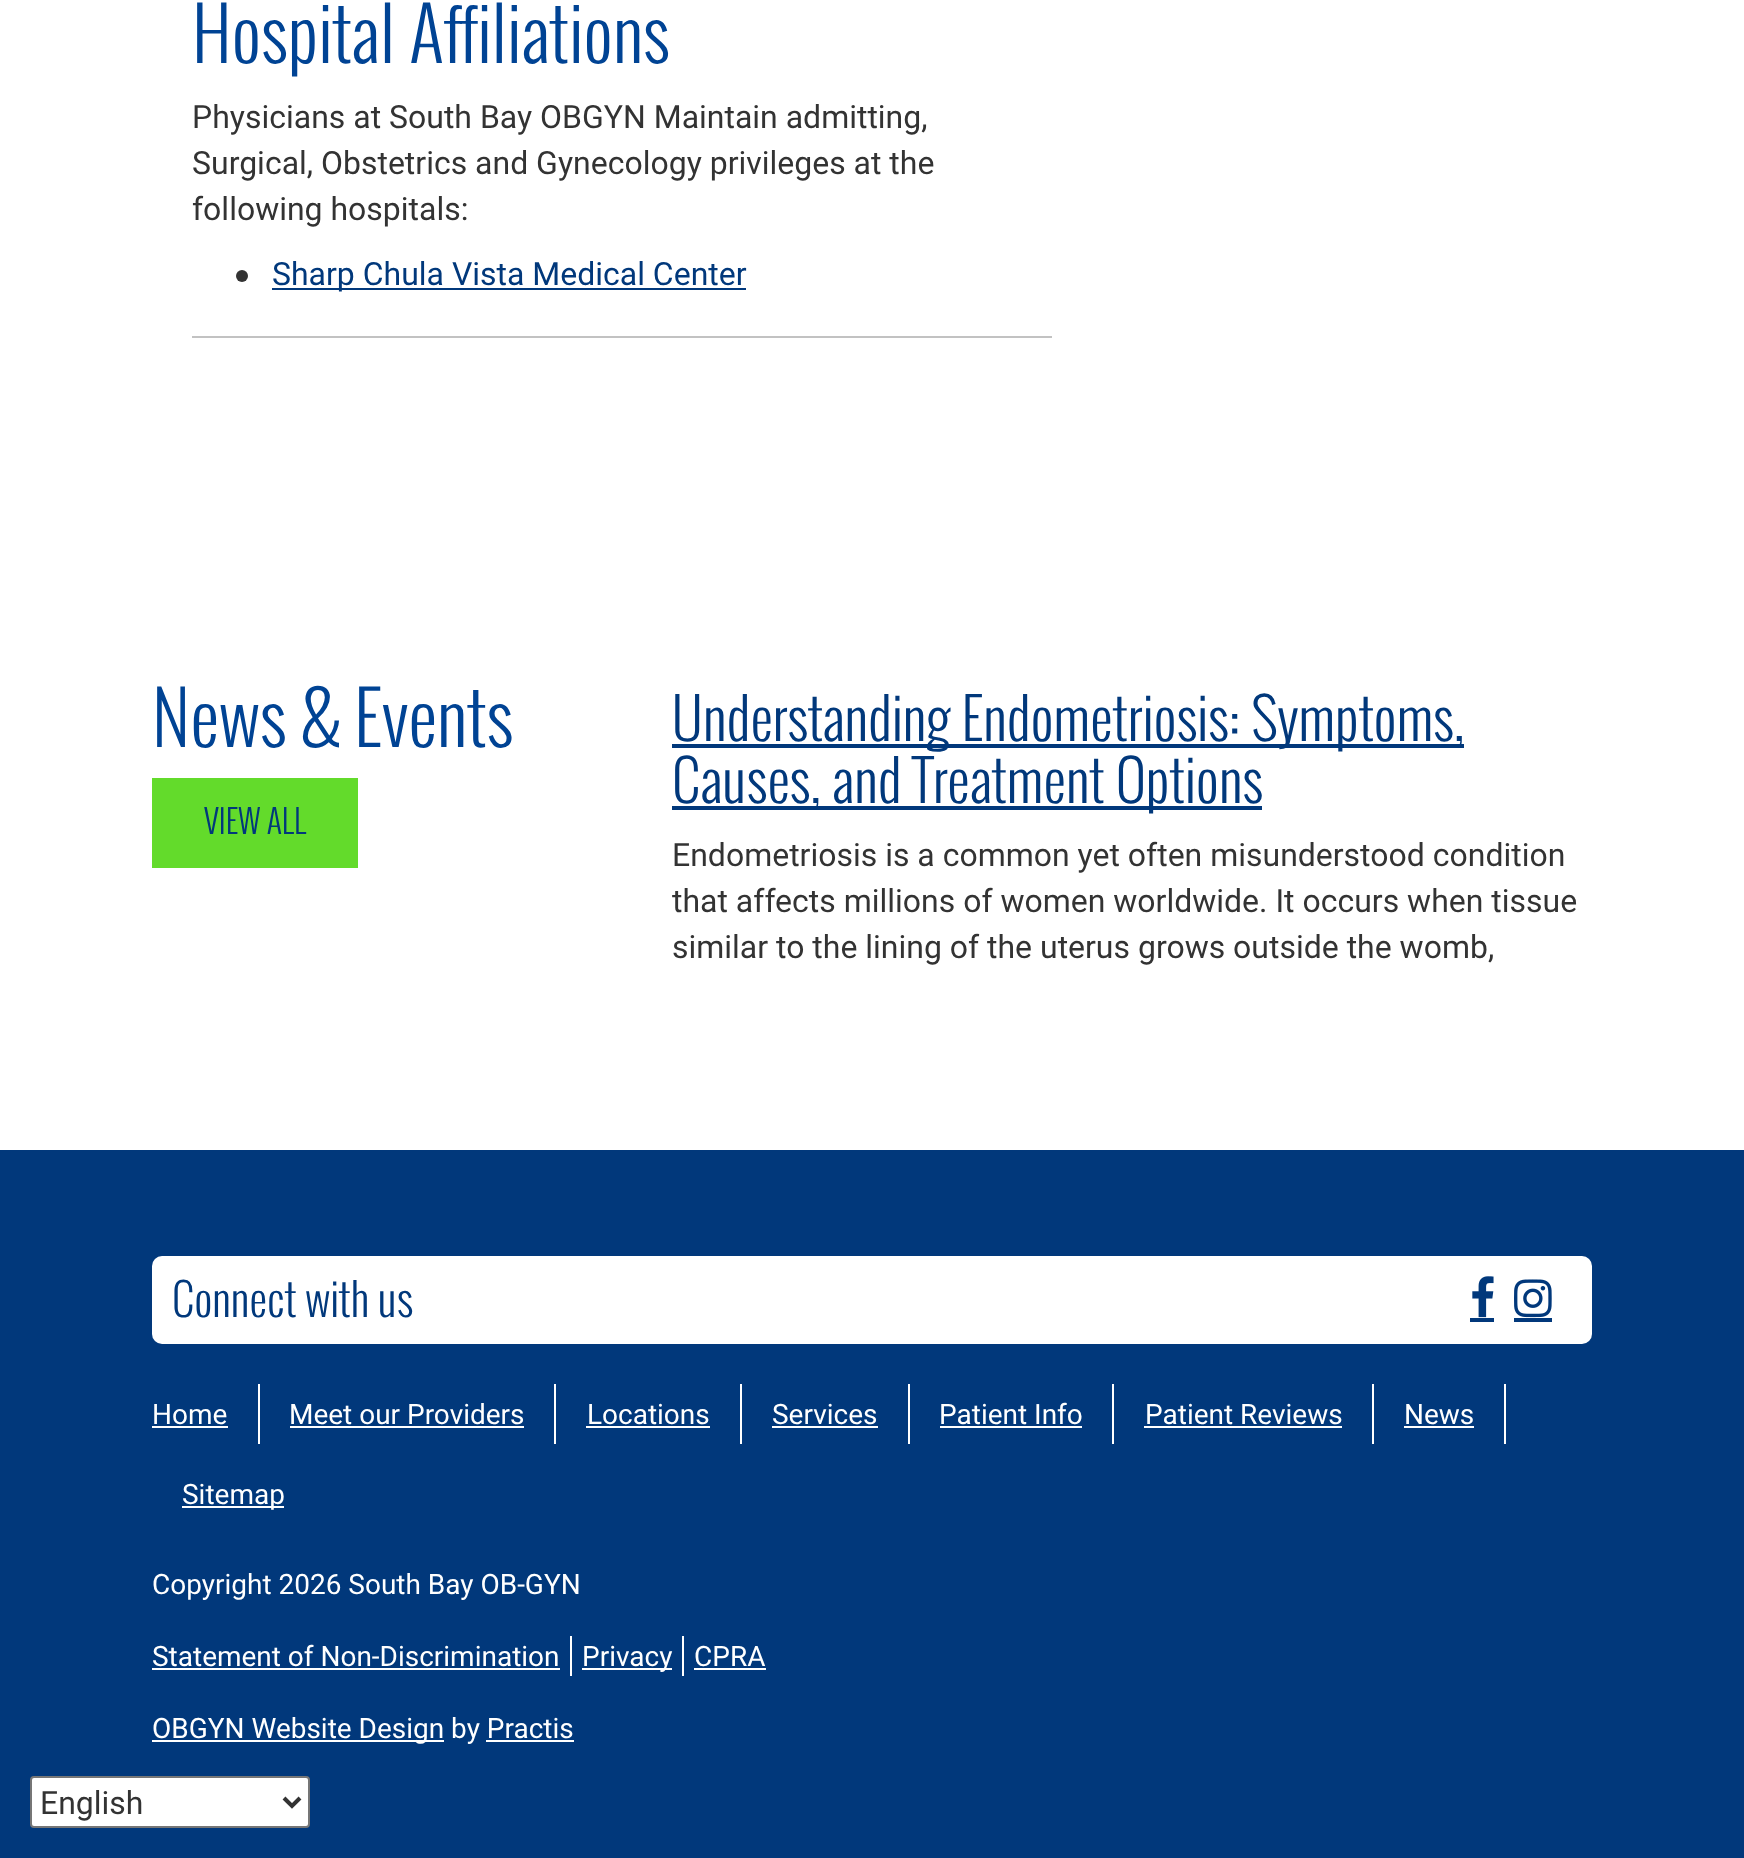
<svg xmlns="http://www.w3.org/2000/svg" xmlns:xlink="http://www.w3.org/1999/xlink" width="1744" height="1858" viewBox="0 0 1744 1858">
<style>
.cls-1{font:300 72px Oswald;fill:#004394}
.cls-2{font:32px Roboto;fill:#333333}
.cls-3{font:32px Roboto;fill:#01387b}
.cls-4{font:300 32px Oswald;fill:#01387b}
.cls-5{font:300 56px Oswald;fill:#01387b}
.cls-6{font:300 44px Oswald;fill:#01387b}
.cls-7{font:28px Roboto;fill:#ffffff}
</style>
<rect width="100%" height="100%" fill="#ffffff"/>
<circle fill="#333333" cx="242" cy="276" r="6"/>
<rect fill="#01387b" x="272" y="288" width="474" height="2"/>
<rect fill="#c2c2c2" x="192" y="336" width="860" height="2"/>
<rect fill="#63db2b" x="152" y="778" width="206" height="90"/>
<rect fill="#01387b" x="672" y="744" width="792" height="4"/>
<rect fill="#01387b" x="672" y="806" width="590" height="4"/>
<rect fill="#01387b" x="0" y="1150" width="1744" height="708"/>
<rect fill="#ffffff" x="152" y="1256" width="1440" height="88" rx="10"/>
<image xlink:href="image0.png" x="1472" y="1276" width="22" height="42"/>
<rect fill="#01387b" x="1470" y="1318" width="24" height="4"/>
<image xlink:href="image1.png" x="1514" y="1279" width="38" height="39"/>
<rect fill="#01387b" x="1514" y="1318" width="38" height="4"/>
<rect fill="#ffffff" x="258" y="1384" width="2" height="60"/>
<rect fill="#ffffff" x="152" y="1426" width="76" height="2"/>
<rect fill="#ffffff" x="554" y="1384" width="2" height="60"/>
<rect fill="#ffffff" x="290" y="1426" width="234" height="2"/>
<rect fill="#ffffff" x="740" y="1384" width="2" height="60"/>
<rect fill="#ffffff" x="586" y="1426" width="124" height="2"/>
<rect fill="#ffffff" x="908" y="1384" width="2" height="60"/>
<rect fill="#ffffff" x="772" y="1426" width="106" height="2"/>
<rect fill="#ffffff" x="1112" y="1384" width="2" height="60"/>
<rect fill="#ffffff" x="940" y="1426" width="142" height="2"/>
<rect fill="#ffffff" x="1372" y="1384" width="2" height="60"/>
<rect fill="#ffffff" x="1144" y="1426" width="198" height="2"/>
<rect fill="#ffffff" x="1504" y="1384" width="2" height="60"/>
<rect fill="#ffffff" x="1404" y="1426" width="70" height="2"/>
<rect fill="#ffffff" x="182" y="1506" width="102" height="2"/>
<rect fill="#ffffff" x="570" y="1636" width="2" height="40"/>
<rect fill="#ffffff" x="152" y="1668" width="408" height="2"/>
<rect fill="#ffffff" x="682" y="1636" width="2" height="40"/>
<rect fill="#ffffff" x="582" y="1668" width="90" height="2"/>
<rect fill="#ffffff" x="694" y="1668" width="72" height="2"/>
<rect fill="#ffffff" x="152" y="1740" width="292" height="2"/>
<rect fill="#ffffff" x="486" y="1740" width="88" height="2"/>
<rect fill="#ffffff" stroke="#767676" stroke-width="2" x="31" y="1777" width="278" height="50" rx="3"/>
<path fill="none" stroke="#333333" stroke-width="4" d="M284 1798L292 1806L300 1798"/>
<text class="cls-1" x="192" y="63">Hospital Affiliations</text>
<text class="cls-2"><tspan x="192" y="128">Physicians at South Bay OBGYN Maintain admitting,</tspan><tspan x="192" y="174">Surgical, Obstetrics and Gynecology privileges at the</tspan><tspan x="192" y="220">following hospitals:</tspan></text>
<text class="cls-3" x="272" y="285">Sharp Chula Vista Medical Center</text>
<text class="cls-1" x="152" y="747">News &amp; Events</text>
<text class="cls-4" x="204" y="834">VIEW ALL</text>
<text class="cls-5"><tspan x="672" y="741">Understanding Endometriosis: Symptoms,</tspan><tspan x="672" y="803">Causes, and Treatment Options</tspan></text>
<text class="cls-2"><tspan x="672" y="866">Endometriosis is a common yet often misunderstood condition</tspan><tspan x="672" y="912">that affects millions of women worldwide. It occurs when tissue</tspan><tspan x="672" y="958">similar to the lining of the uterus grows outside the womb,</tspan></text>
<text class="cls-6" x="172" y="1317">Connect with us</text>
<text class="cls-7" x="152" y="1424">Home</text>
<text class="cls-7" x="289" y="1424">Meet our Providers</text>
<text class="cls-7" x="587" y="1424">Locations</text>
<text class="cls-7" x="772" y="1424">Services</text>
<text class="cls-7" x="939" y="1424">Patient Info</text>
<text class="cls-7" x="1145" y="1424">Patient Reviews</text>
<text class="cls-7" x="1404" y="1424">News</text>
<text class="cls-7" x="182" y="1504">Sitemap</text>
<text class="cls-7" x="152" y="1594">Copyright 2026 South Bay OB-GYN</text>
<text class="cls-7" x="152" y="1666">Statement of Non-Discrimination</text>
<text class="cls-7" x="582" y="1666">Privacy</text>
<text class="cls-7" x="694" y="1666">CPRA</text>
<text class="cls-7" x="152" y="1738">OBGYN Website Design by Practis</text>
<text class="cls-2" x="40" y="1814">English</text>
</svg>
